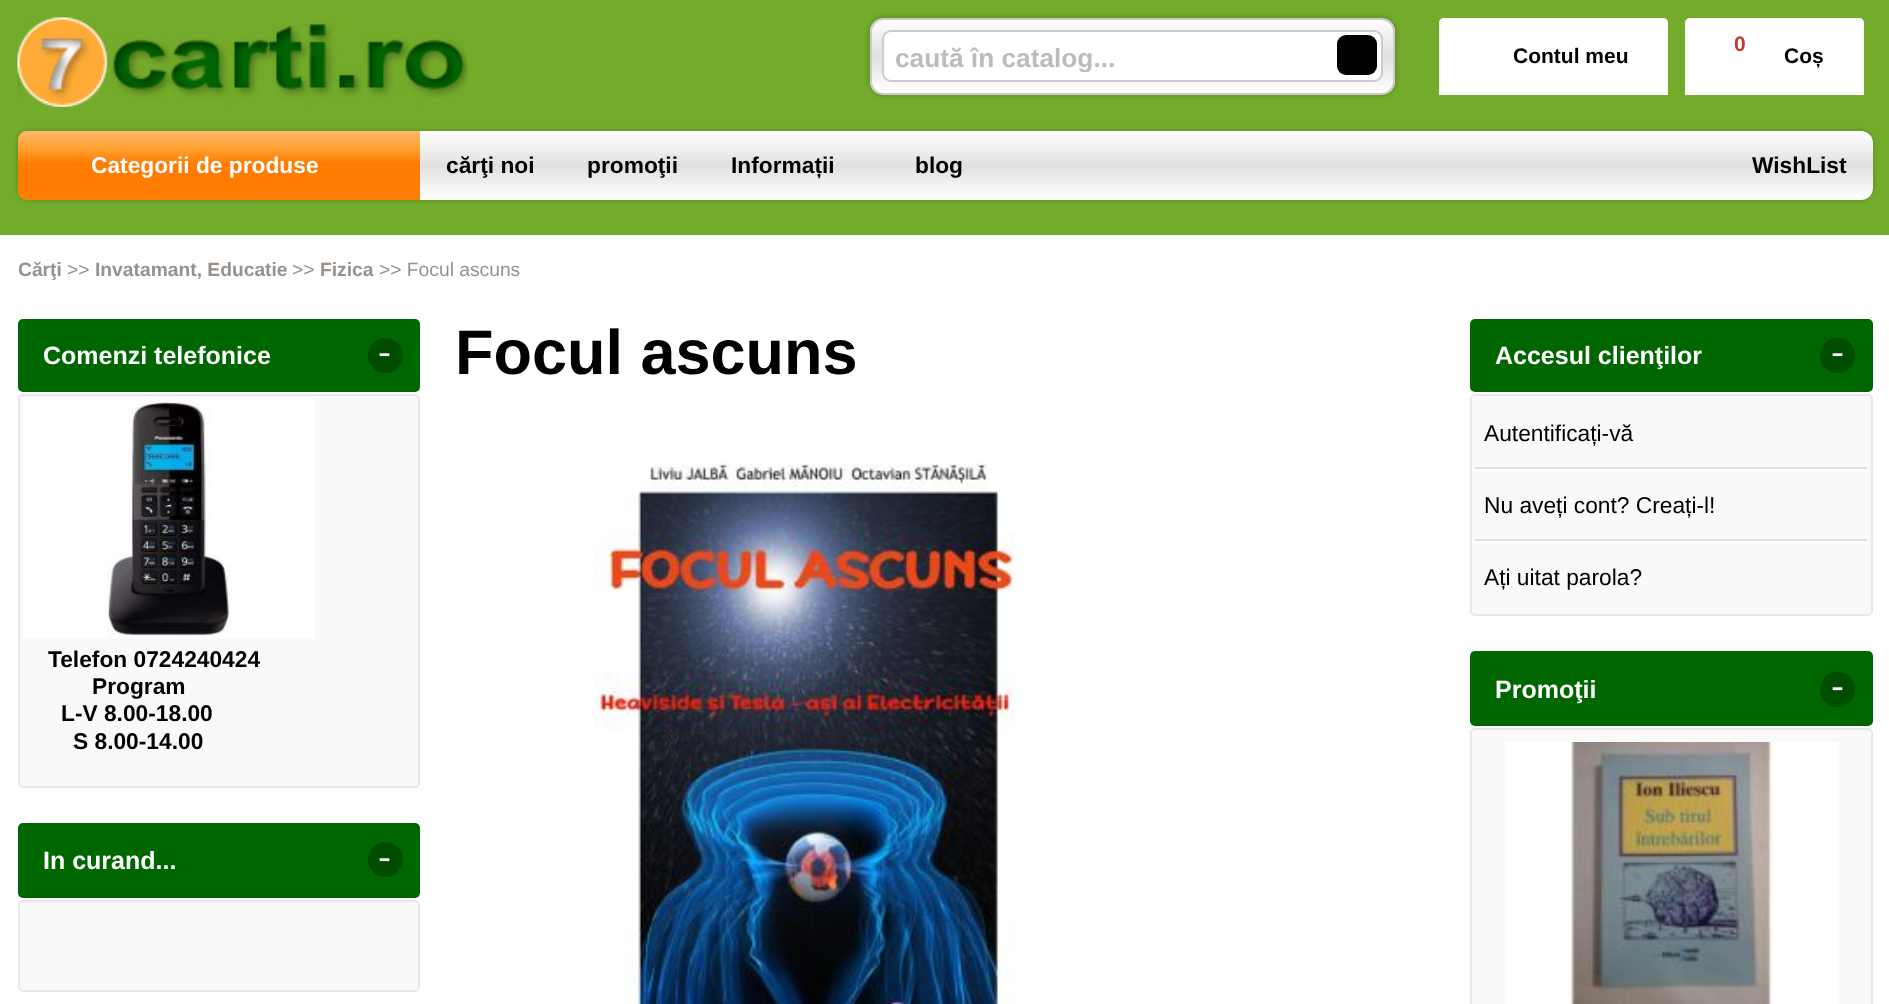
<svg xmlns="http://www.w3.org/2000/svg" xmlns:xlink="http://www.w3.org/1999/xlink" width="1889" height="1004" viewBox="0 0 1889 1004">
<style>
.cls-1{font:bold 26.25px Liberation Sans;fill:#bcbcbc}
.cls-2{font:bold 21px Liberation Sans;fill:#000000}
.cls-3{font:bold 21px Liberation Sans;fill:#bf3c2b}
.cls-4{font:bold 22.75px Liberation Sans;fill:#ffffff}
.cls-5{font:bold 22.75px Liberation Sans;fill:#000000}
.cls-6{font:bold 19.25px Liberation Sans;fill:#99918c}
.cls-7{font:19.25px Liberation Sans;fill:#99918c}
.cls-8{font:bold 25px Liberation Sans;fill:#ffffff}
.cls-9{font:35px Liberation Mono;fill:#ffffff}
.cls-10{font:bold 63px Liberation Sans;fill:#000000}
.cls-11{font:22.75px Liberation Sans;fill:#000000}
</style>
<defs>
<clipPath id="clip1"><rect x="870" y="18" width="525" height="77" rx="14"/></clipPath>
<linearGradient id="g1" gradientUnits="userSpaceOnUse" x1="1132" y1="19" x2="1132" y2="93"><stop offset="0" stop-color="#ffffff"/><stop offset="0.5" stop-color="#e0e0e0"/><stop offset="1" stop-color="#ffffff"/></linearGradient>
<linearGradient id="g2" gradientUnits="userSpaceOnUse" x1="945" y1="131" x2="945" y2="200"><stop offset="0" stop-color="#ffffff"/><stop offset="0.5" stop-color="#e0e0e0"/><stop offset="1" stop-color="#ffffff"/></linearGradient>
<linearGradient id="g3" gradientUnits="userSpaceOnUse" x1="219" y1="131" x2="219" y2="200"><stop offset="0" stop-color="#ffb76b"/><stop offset="0.2" stop-color="#ffa73d"/><stop offset="0.48" stop-color="#ff7c00"/><stop offset="0.74" stop-color="#ff7c00"/><stop offset="1" stop-color="#ff7f04"/></linearGradient>
<clipPath id="clip2"><rect x="894" y="42" width="406" height="30"/></clipPath>
</defs>
<rect width="100%" height="100%" fill="#ffffff"/>
<rect fill="#73ac2b" x="0" y="0" width="1889" height="235"/>
<image xlink:href="image0.png" x="17" y="17" width="451" height="90"/>
<rect fill="#000000" fill-opacity="0.15" filter="blur(2px)" x="868" y="16" width="529" height="80" rx="16"/>
<g clip-path="url(#clip1)">
<rect fill="url(#g1)" x="870" y="19" width="525" height="74"/>
</g>
<rect fill="none" stroke="#cccccc" stroke-width="2" x="871" y="19" width="523" height="75" rx="13"/>
<rect fill="#ffffff" stroke="#cccccc" stroke-width="2" x="883" y="31" width="499" height="50" rx="8"/>
<rect fill="#000000" x="1337" y="35" width="40" height="40" rx="9"/>
<path fill="#ffffff" d="M1444 18H1663C1666 18 1668 20 1668 23V95H1439V23C1439 20 1441 18 1444 18Z"/>
<path fill="#ffffff" d="M1690 18H1859C1862 18 1864 20 1864 23V95H1685V23C1685 20 1687 18 1690 18Z"/>
<rect fill="#000000" fill-opacity="0.15" filter="blur(2px)" x="16" y="130" width="1858" height="71" rx="14"/>
<rect fill="url(#g2)" x="18" y="131" width="1855" height="69" rx="12"/>
<path fill="url(#g3)" d="M27 131H420V200H27C22 200 18 196 18 191V140C18 135 22 131 27 131Z"/>
<rect fill="#006600" x="18" y="319" width="402" height="73" rx="5"/>
<circle fill="#004c00" cx="385.5" cy="355.5" r="17.5"/>
<rect fill="#f9f9f9" stroke="#e8e8e8" stroke-width="2" x="19" y="395" width="400" height="392" rx="4"/>
<image xlink:href="image1.png" x="23" y="399" width="292" height="240"/>
<rect fill="#006600" x="18" y="823" width="402" height="75" rx="5"/>
<circle fill="#004c00" cx="385.5" cy="859.5" r="17.5"/>
<rect fill="#f9f9f9" stroke="#e8e8e8" stroke-width="2" x="19" y="901" width="400" height="90" rx="4"/>
<image xlink:href="image2.png" x="594" y="463" width="422" height="541"/>
<rect fill="#006600" x="1470" y="319" width="403" height="73" rx="5"/>
<circle fill="#004c00" cx="1837.5" cy="355.5" r="17.5"/>
<rect fill="#f9f9f9" stroke="#e8e8e8" stroke-width="2" x="1471" y="395" width="401" height="220" rx="4"/>
<rect fill="#e0e0e0" x="1475" y="467" width="392" height="2"/>
<rect fill="#ffffff" x="1475" y="469" width="392" height="2"/>
<rect fill="#e0e0e0" x="1475" y="539" width="392" height="2"/>
<rect fill="#ffffff" x="1475" y="541" width="392" height="2"/>
<rect fill="#006600" x="1470" y="651" width="403" height="75" rx="5"/>
<circle fill="#004c00" cx="1837.5" cy="689.5" r="17.5"/>
<rect fill="#f9f9f9" stroke="#e8e8e8" stroke-width="2" x="1471" y="729" width="401" height="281" rx="4"/>
<rect fill="#ffffff" x="1505" y="742" width="333" height="262"/>
<image xlink:href="image3.png" x="1568" y="742" width="206" height="262"/>
<g clip-path="url(#clip2)">
<text class="cls-1" x="895" y="67">caută în catalog...</text>
</g>
<text class="cls-2" x="1513" y="63">Contul meu</text>
<text class="cls-3" x="1734" y="51">0</text>
<text class="cls-2" x="1784" y="63">Coș</text>
<text class="cls-4" x="91" y="173">Categorii de produse</text>
<text class="cls-5" x="446" y="173">cărţi noi</text>
<text class="cls-5" x="587" y="173">promoţii</text>
<text class="cls-5" x="731" y="173">Informații</text>
<text class="cls-5" x="915" y="173">blog</text>
<text class="cls-5" x="1752" y="173">WishList</text>
<text class="cls-6" x="18" y="276">Cărţi</text>
<text class="cls-7" x="67" y="276">&gt;&gt;</text>
<text class="cls-6" x="95" y="276">Invatamant, Educatie</text>
<text class="cls-7" x="292" y="276">&gt;&gt;</text>
<text class="cls-6" x="320" y="276">Fizica</text>
<text class="cls-7" x="379" y="276">&gt;&gt; Focul ascuns</text>
<text class="cls-8" x="43" y="364">Comenzi telefonice</text>
<text class="cls-9" x="374" y="364">-</text>
<text class="cls-5" x="48" y="667">Telefon 0724240424</text>
<text class="cls-5" x="92" y="694">Program</text>
<text class="cls-5" x="61" y="721">L-V 8.00-18.00</text>
<text class="cls-5" x="73" y="749">S 8.00-14.00</text>
<text class="cls-8" x="43" y="869">In curand...</text>
<text class="cls-9" x="374" y="869">-</text>
<text class="cls-10" x="455" y="374">Focul ascuns</text>
<text class="cls-8" x="1495" y="364">Accesul clienţilor</text>
<text class="cls-9" x="1827" y="364">-</text>
<text class="cls-11" x="1484" y="441">Autentificați-vă</text>
<text class="cls-11" x="1484" y="513">Nu aveți cont? Creați-l!</text>
<text class="cls-11" x="1484" y="585">Ați uitat parola?</text>
<text class="cls-8" x="1495" y="698">Promoţii</text>
<text class="cls-9" x="1827" y="698">-</text>
</svg>
